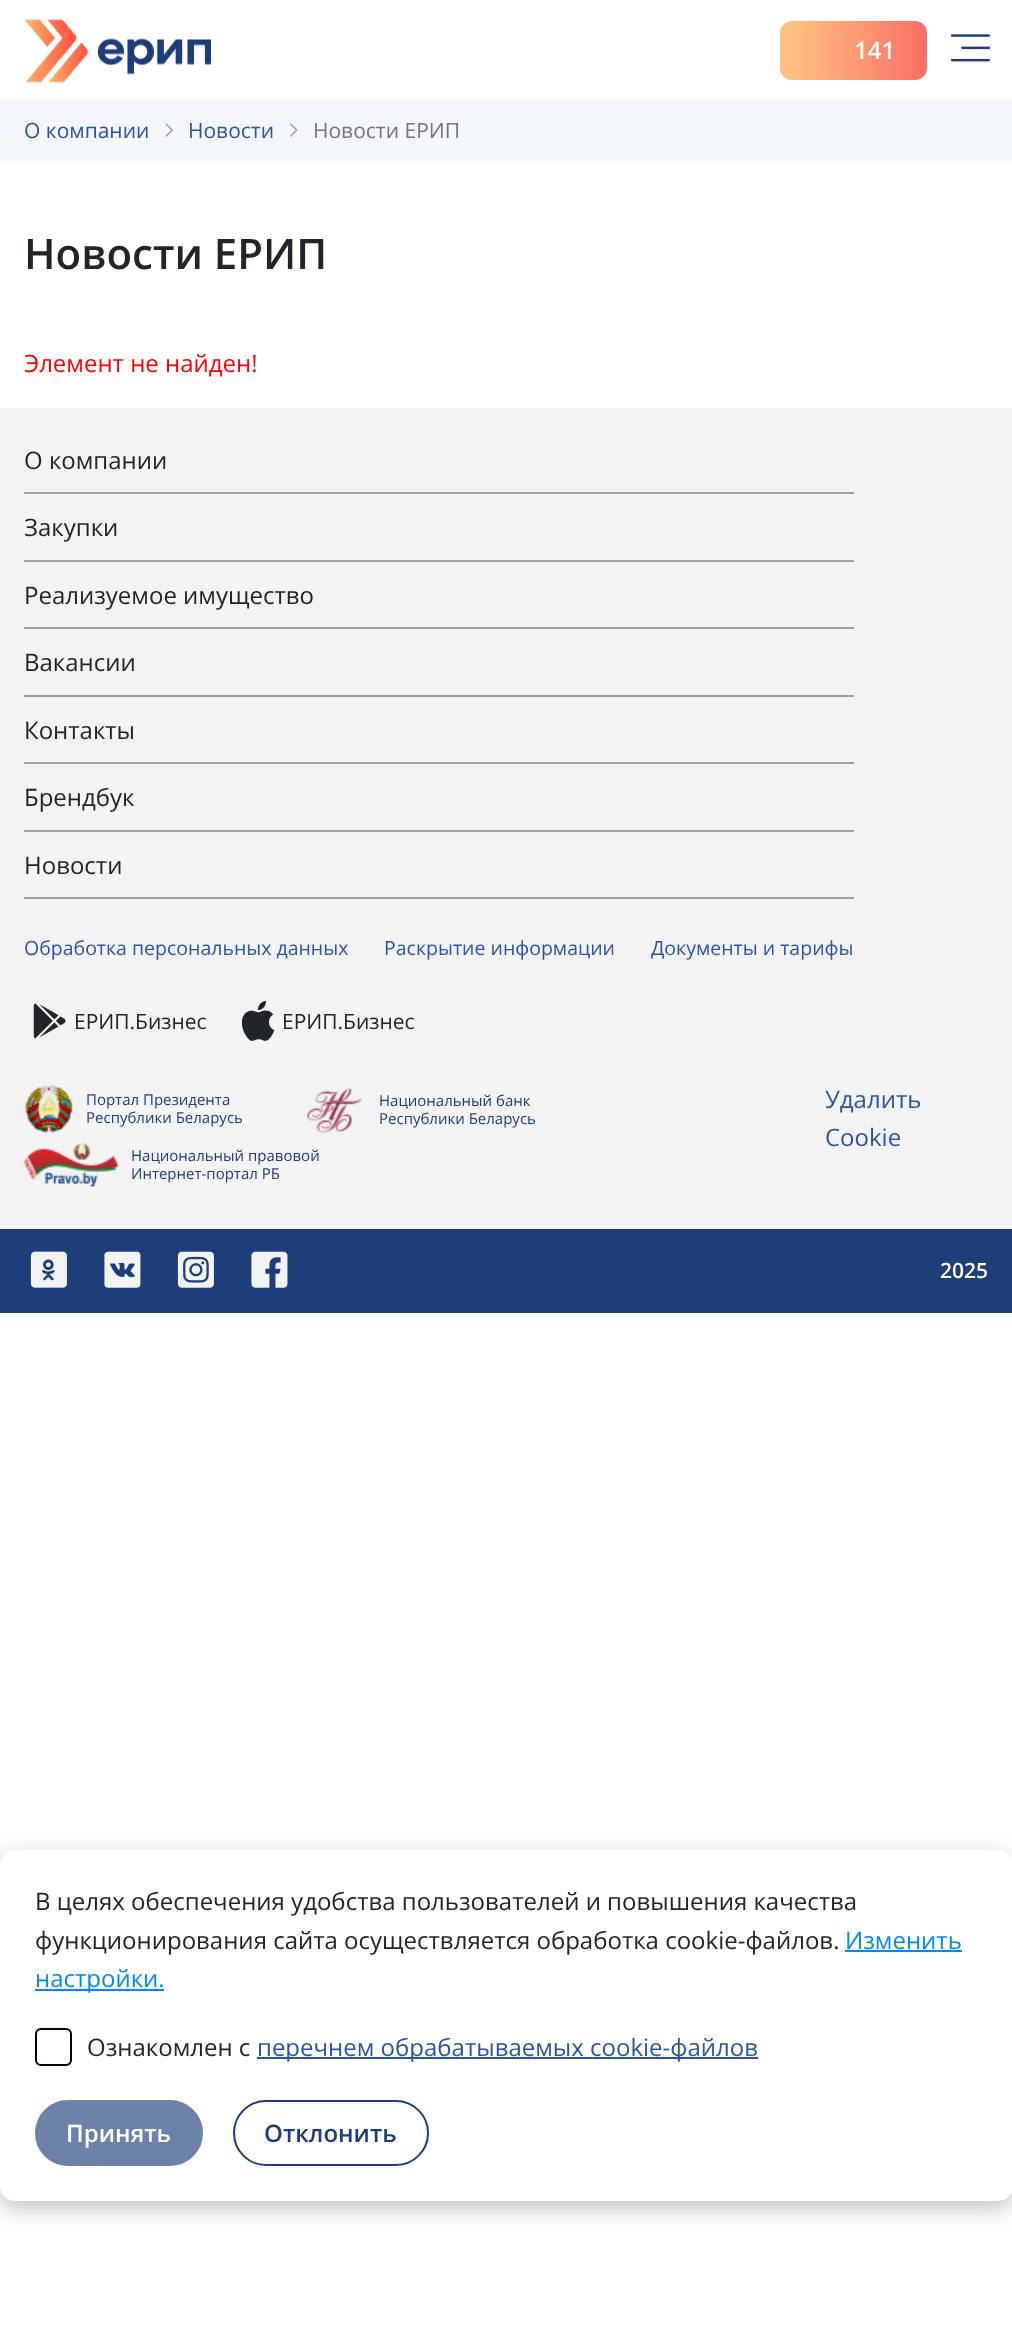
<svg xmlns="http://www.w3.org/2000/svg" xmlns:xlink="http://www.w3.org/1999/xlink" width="1012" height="2327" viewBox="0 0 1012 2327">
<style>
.cls-1{font:600 24px Open Sans;fill:#ffffff}
.cls-2{font:21px Open Sans;fill:#2a54a4}
.cls-3{font:21px Open Sans;fill:#757575}
.cls-4{font:600 42px Open Sans;fill:#212529}
.cls-5{font:24px Open Sans;fill:#ff0000}
.cls-6{font:24px Open Sans;fill:#212529}
.cls-7{font:19.5px Open Sans;fill:#2a54a4}
.cls-8{font:21px Open Sans;fill:#212529}
.cls-9{font:15px Open Sans;fill:#1e3e7a}
.cls-10{font:24px Open Sans;fill:#2a54a4}
.cls-11{font:600 21px Open Sans;fill:#ffffff}
.cls-12{font:24px Open Sans;fill:#0088ff}
.cls-13{font:600 24px Open Sans;fill:#1e3e7a}
</style>
<defs>
<linearGradient id="g1" gradientUnits="userSpaceOnUse" x1="780" y1="50" x2="927" y2="50"><stop offset="0.07" stop-color="#ffc181"/><stop offset="0.99" stop-color="#fa6f64"/></linearGradient>
</defs>
<rect width="100%" height="100%" fill="#ffffff"/>
<image xlink:href="image0.png" x="25" y="19" width="186" height="64"/>
<rect fill="url(#g1)" x="780" y="21" width="147" height="59" rx="12"/>
<image xlink:href="image1.png" x="950" y="34" width="41" height="28"/>
<rect fill="#f3f6fb" x="0" y="99" width="1012" height="62"/>
<image xlink:href="image2.png" x="165" y="123" width="9" height="14"/>
<image xlink:href="image3.png" x="289" y="123" width="9" height="14"/>
<rect fill="#f3f3f3" x="0" y="408" width="1012" height="821"/>
<rect fill="#9f9f9f" x="24" y="492" width="830" height="2"/>
<rect fill="#9f9f9f" x="24" y="560" width="830" height="2"/>
<rect fill="#9f9f9f" x="24" y="627" width="830" height="2"/>
<rect fill="#9f9f9f" x="24" y="695" width="830" height="2"/>
<rect fill="#9f9f9f" x="24" y="762" width="830" height="2"/>
<rect fill="#9f9f9f" x="24" y="830" width="830" height="2"/>
<rect fill="#9f9f9f" x="24" y="897" width="830" height="2"/>
<image xlink:href="image4.png" x="33" y="1003" width="33" height="36"/>
<image xlink:href="image5.png" x="242" y="1001" width="33" height="40"/>
<image xlink:href="image6.png" x="25" y="1085" width="48" height="48"/>
<image xlink:href="image7.png" x="307" y="1088" width="56" height="45"/>
<image xlink:href="image8.png" x="24" y="1142" width="95" height="45"/>
<rect fill="#1e3e7a" x="0" y="1229" width="1012" height="84"/>
<image xlink:href="image9.png" x="30" y="1251" width="37" height="37"/>
<image xlink:href="image10.png" x="104" y="1251" width="37" height="37"/>
<image xlink:href="image11.png" x="177" y="1251" width="37" height="37"/>
<image xlink:href="image12.png" x="251" y="1251" width="37" height="37"/>
<rect fill="#000000" fill-opacity="0.25" filter="blur(11px)" x="0" y="1857" width="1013" height="351" rx="15"/>
<rect fill="#ffffff" x="0" y="1850" width="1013" height="351" rx="15"/>
<rect fill="#0088ff" x="845" y="1950" width="117" height="2"/>
<rect fill="#0088ff" x="35" y="1989" width="129" height="2"/>
<rect fill="none" stroke="#000000" stroke-width="2" x="36" y="2029" width="35" height="36" rx="5"/>
<rect fill="#2a54a4" x="257" y="2057" width="501" height="2"/>
<rect fill="#6d82a9" stroke="#6d82a9" stroke-width="2" x="36" y="2101" width="166" height="64" rx="32"/>
<rect fill="none" stroke="#1e3e7a" stroke-width="2" x="234" y="2101" width="194" height="64" rx="32"/>
<text class="cls-1" x="854" y="59">141</text>
<text class="cls-2" x="24" y="138">О компании</text>
<text class="cls-2" x="188" y="138">Новости</text>
<text class="cls-3" x="313" y="138">Новости ЕРИП</text>
<text class="cls-4" x="24" y="269">Новости ЕРИП</text>
<text class="cls-5" x="24" y="372">Элемент не найден!</text>
<text class="cls-6" x="24" y="469">О компании</text>
<text class="cls-6" x="24" y="536">Закупки</text>
<text class="cls-6" x="24" y="604">Реализуемое имущество</text>
<text class="cls-6" x="24" y="671">Вакансии</text>
<text class="cls-6" x="24" y="739">Контакты</text>
<text class="cls-6" x="24" y="806">Брендбук</text>
<text class="cls-6" x="24" y="874">Новости</text>
<text class="cls-7" x="24" y="955">Обработка персональных данных</text>
<text class="cls-7" x="384" y="955">Раскрытие информации</text>
<text class="cls-7" x="651" y="955">Документы и тарифы</text>
<text class="cls-8" x="74" y="1029">ЕРИП.Бизнес</text>
<text class="cls-8" x="282" y="1029">ЕРИП.Бизнес</text>
<text class="cls-9"><tspan x="86" y="1105">Портал Президента</tspan><tspan x="86" y="1123">Республики Беларусь</tspan></text>
<text class="cls-9"><tspan x="379" y="1106">Национальный банк</tspan><tspan x="379" y="1124">Республики Беларусь</tspan></text>
<text class="cls-9"><tspan x="131" y="1161">Национальный правовой</tspan><tspan x="131" y="1179">Интернет-портал РБ</tspan></text>
<text class="cls-10"><tspan x="825" y="1108">Удалить</tspan><tspan x="825" y="1146">Cookie</tspan></text>
<text class="cls-11" x="940" y="1278">2025</text>
<text class="cls-6"><tspan x="35" y="1910">В целях обеспечения удобства пользователей и повышения качества</tspan><tspan x="35" y="1949">функционирования сайта осуществляется обработка сookiе-файлов.</tspan></text>
<text class="cls-12" x="845" y="1949">Изменить</text>
<text class="cls-12" x="35" y="1987">настройки.</text>
<text class="cls-6" x="87" y="2056">Ознакомлен с</text>
<text class="cls-10" x="257" y="2056">перечнем обрабатываемых cookie-файлов</text>
<text class="cls-1" x="66" y="2142">Принять</text>
<text class="cls-13" x="264" y="2142">Отклонить</text>
</svg>
